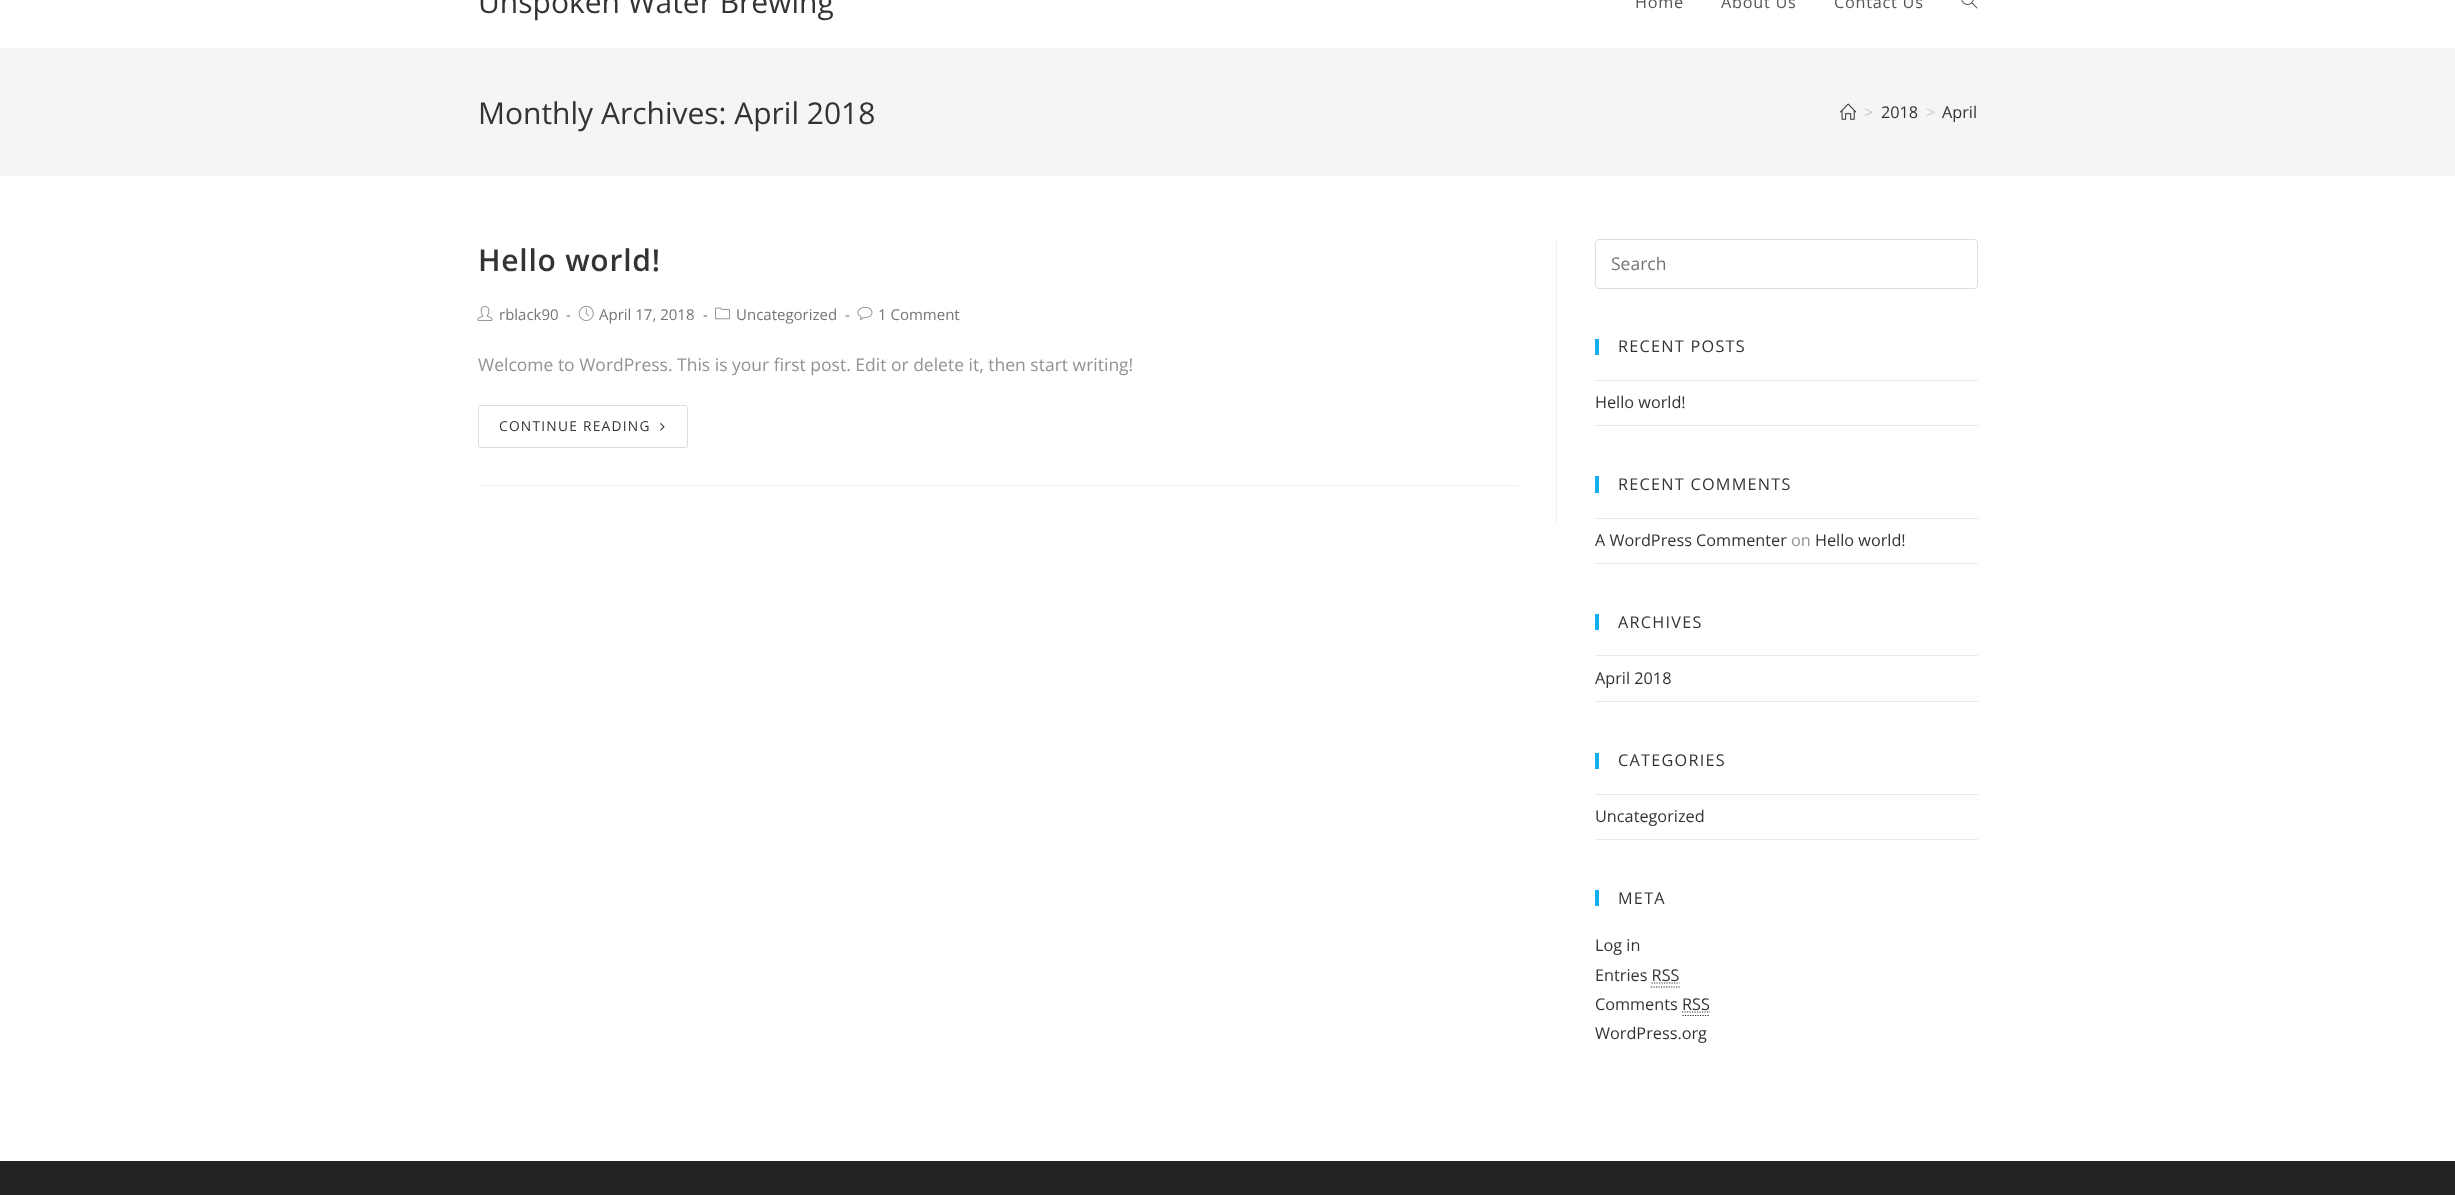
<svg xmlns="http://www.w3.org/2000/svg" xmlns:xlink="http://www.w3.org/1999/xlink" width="2455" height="1195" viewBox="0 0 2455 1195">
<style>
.cls-1{font:30px Open Sans;fill:#333333}
.cls-2{font:16.25px Open Sans;letter-spacing:0.75px;fill:#555555}
.cls-3{font:16.25px Open Sans;fill:#c6c6c6}
.cls-4{font:16.25px Open Sans;fill:#333333}
.cls-5{font:600 30px Open Sans;letter-spacing:0.75px;fill:#333333}
.cls-6{font:15px Open Sans;fill:#757575}
.cls-7{font:17.5px Open Sans;fill:#929292}
.cls-8{font:13.75px Open Sans;letter-spacing:1.25px;fill:#333333}
.cls-9{font:17.5px Open Sans;fill:#757575}
.cls-10{font:16.25px Open Sans;letter-spacing:1.25px;fill:#333333}
.cls-11{font:16.25px Open Sans;fill:#929292}
</style>
<rect width="100%" height="100%" fill="#ffffff"/>
<rect fill="#f1f1f1" x="0" y="48" width="2455" height="1"/>
<image xlink:href="image0.png" x="1961" y="0" width="17" height="9"/>
<rect fill="#f5f5f5" x="0" y="49" width="2455" height="127"/>
<image xlink:href="image1.png" x="1840" y="103" width="17" height="17"/>
<rect fill="#f1f1f1" x="1556" y="239" width="1" height="285"/>
<rect fill="#f1f1f1" x="478" y="485" width="1041" height="1"/>
<image xlink:href="image2.png" x="477" y="306" width="16" height="15"/>
<image xlink:href="image3.png" x="578" y="306" width="16" height="15"/>
<image xlink:href="image4.png" x="715" y="307" width="15" height="13"/>
<image xlink:href="image5.png" x="857" y="306" width="16" height="14"/>
<rect fill="none" stroke="#dddddd" x="478.5" y="405.5" width="209" height="42" rx="2"/>
<image xlink:href="image6.png" x="660" y="423" width="5" height="8"/>
<rect fill="none" stroke="#dddddd" x="1595.5" y="239.5" width="382" height="49" rx="3.5"/>
<rect fill="#13aff0" x="1595" y="339" width="4" height="16"/>
<rect fill="#e9e9e9" x="1595" y="380" width="383" height="1"/>
<rect fill="#e9e9e9" x="1595" y="425" width="383" height="1"/>
<rect fill="#13aff0" x="1595" y="476" width="4" height="17"/>
<rect fill="#e9e9e9" x="1595" y="518" width="383" height="1"/>
<rect fill="#e9e9e9" x="1595" y="563" width="383" height="1"/>
<rect fill="#13aff0" x="1595" y="614" width="4" height="16"/>
<rect fill="#e9e9e9" x="1595" y="655" width="383" height="1"/>
<rect fill="#e9e9e9" x="1595" y="701" width="383" height="1"/>
<rect fill="#13aff0" x="1595" y="753" width="4" height="16"/>
<rect fill="#e9e9e9" x="1595" y="794" width="383" height="1"/>
<rect fill="#e9e9e9" x="1595" y="839" width="383" height="1"/>
<rect fill="#13aff0" x="1595" y="890" width="4" height="16"/>
<path fill="none" stroke="#333333" stroke-width="1.2" stroke-dasharray="1.25 1.25" d="M1651 987H1680M1651.5 983H1679.5"/>
<path fill="none" stroke="#333333" stroke-width="1.2" stroke-dasharray="1.25 1.25" d="M1682.5 1015.5H1710M1682 1012H1710"/>
<rect fill="#222222" x="0" y="1161" width="2455" height="34"/>
<text class="cls-1" x="478" y="13">Unspoken Water Brewing</text>
<text class="cls-2" x="1635" y="8">Home</text>
<text class="cls-2" x="1721" y="8">About Us</text>
<text class="cls-2" x="1834" y="8">Contact Us</text>
<text class="cls-1" x="478" y="124">Monthly Archives: April 2018</text>
<text class="cls-3" x="1864" y="118">&gt;</text>
<text class="cls-4" x="1881" y="118">2018</text>
<text class="cls-3" x="1926" y="118">&gt;</text>
<text class="cls-4" x="1942" y="118">April</text>
<text class="cls-5" x="478" y="271">Hello world!</text>
<text class="cls-6" x="499" y="320">rblack90</text>
<text class="cls-6" x="566" y="320">-</text>
<text class="cls-6" x="599" y="320">April 17, 2018</text>
<text class="cls-6" x="703" y="320">-</text>
<text class="cls-6" x="736" y="320">Uncategorized</text>
<text class="cls-6" x="845" y="320">-</text>
<text class="cls-6" x="878" y="320">1 Comment</text>
<text class="cls-7" x="478" y="371">Welcome to WordPress. This is your first post. Edit or delete it, then start writing!</text>
<text class="cls-8" x="499" y="431">CONTINUE READING</text>
<text class="cls-9" x="1611" y="270">Search</text>
<text class="cls-10" x="1618" y="352">RECENT POSTS</text>
<text class="cls-4" x="1595" y="408">Hello world!</text>
<text class="cls-10" x="1618" y="490">RECENT COMMENTS</text>
<text class="cls-4" x="1595" y="546">A WordPress Commenter</text>
<text class="cls-11" x="1791" y="546">on</text>
<text class="cls-4" x="1815" y="546">Hello world!</text>
<text class="cls-10" x="1618" y="628">ARCHIVES</text>
<text class="cls-4" x="1595" y="684">April 2018</text>
<text class="cls-10" x="1618" y="766">CATEGORIES</text>
<text class="cls-4" x="1595" y="822">Uncategorized</text>
<text class="cls-10" x="1618" y="904">META</text>
<text class="cls-4"><tspan x="1595" y="951">Log in</tspan><tspan x="1595" y="981">Entries RSS</tspan><tspan x="1595" y="1010">Comments RSS</tspan><tspan x="1595" y="1039">WordPress.org</tspan></text>
</svg>
